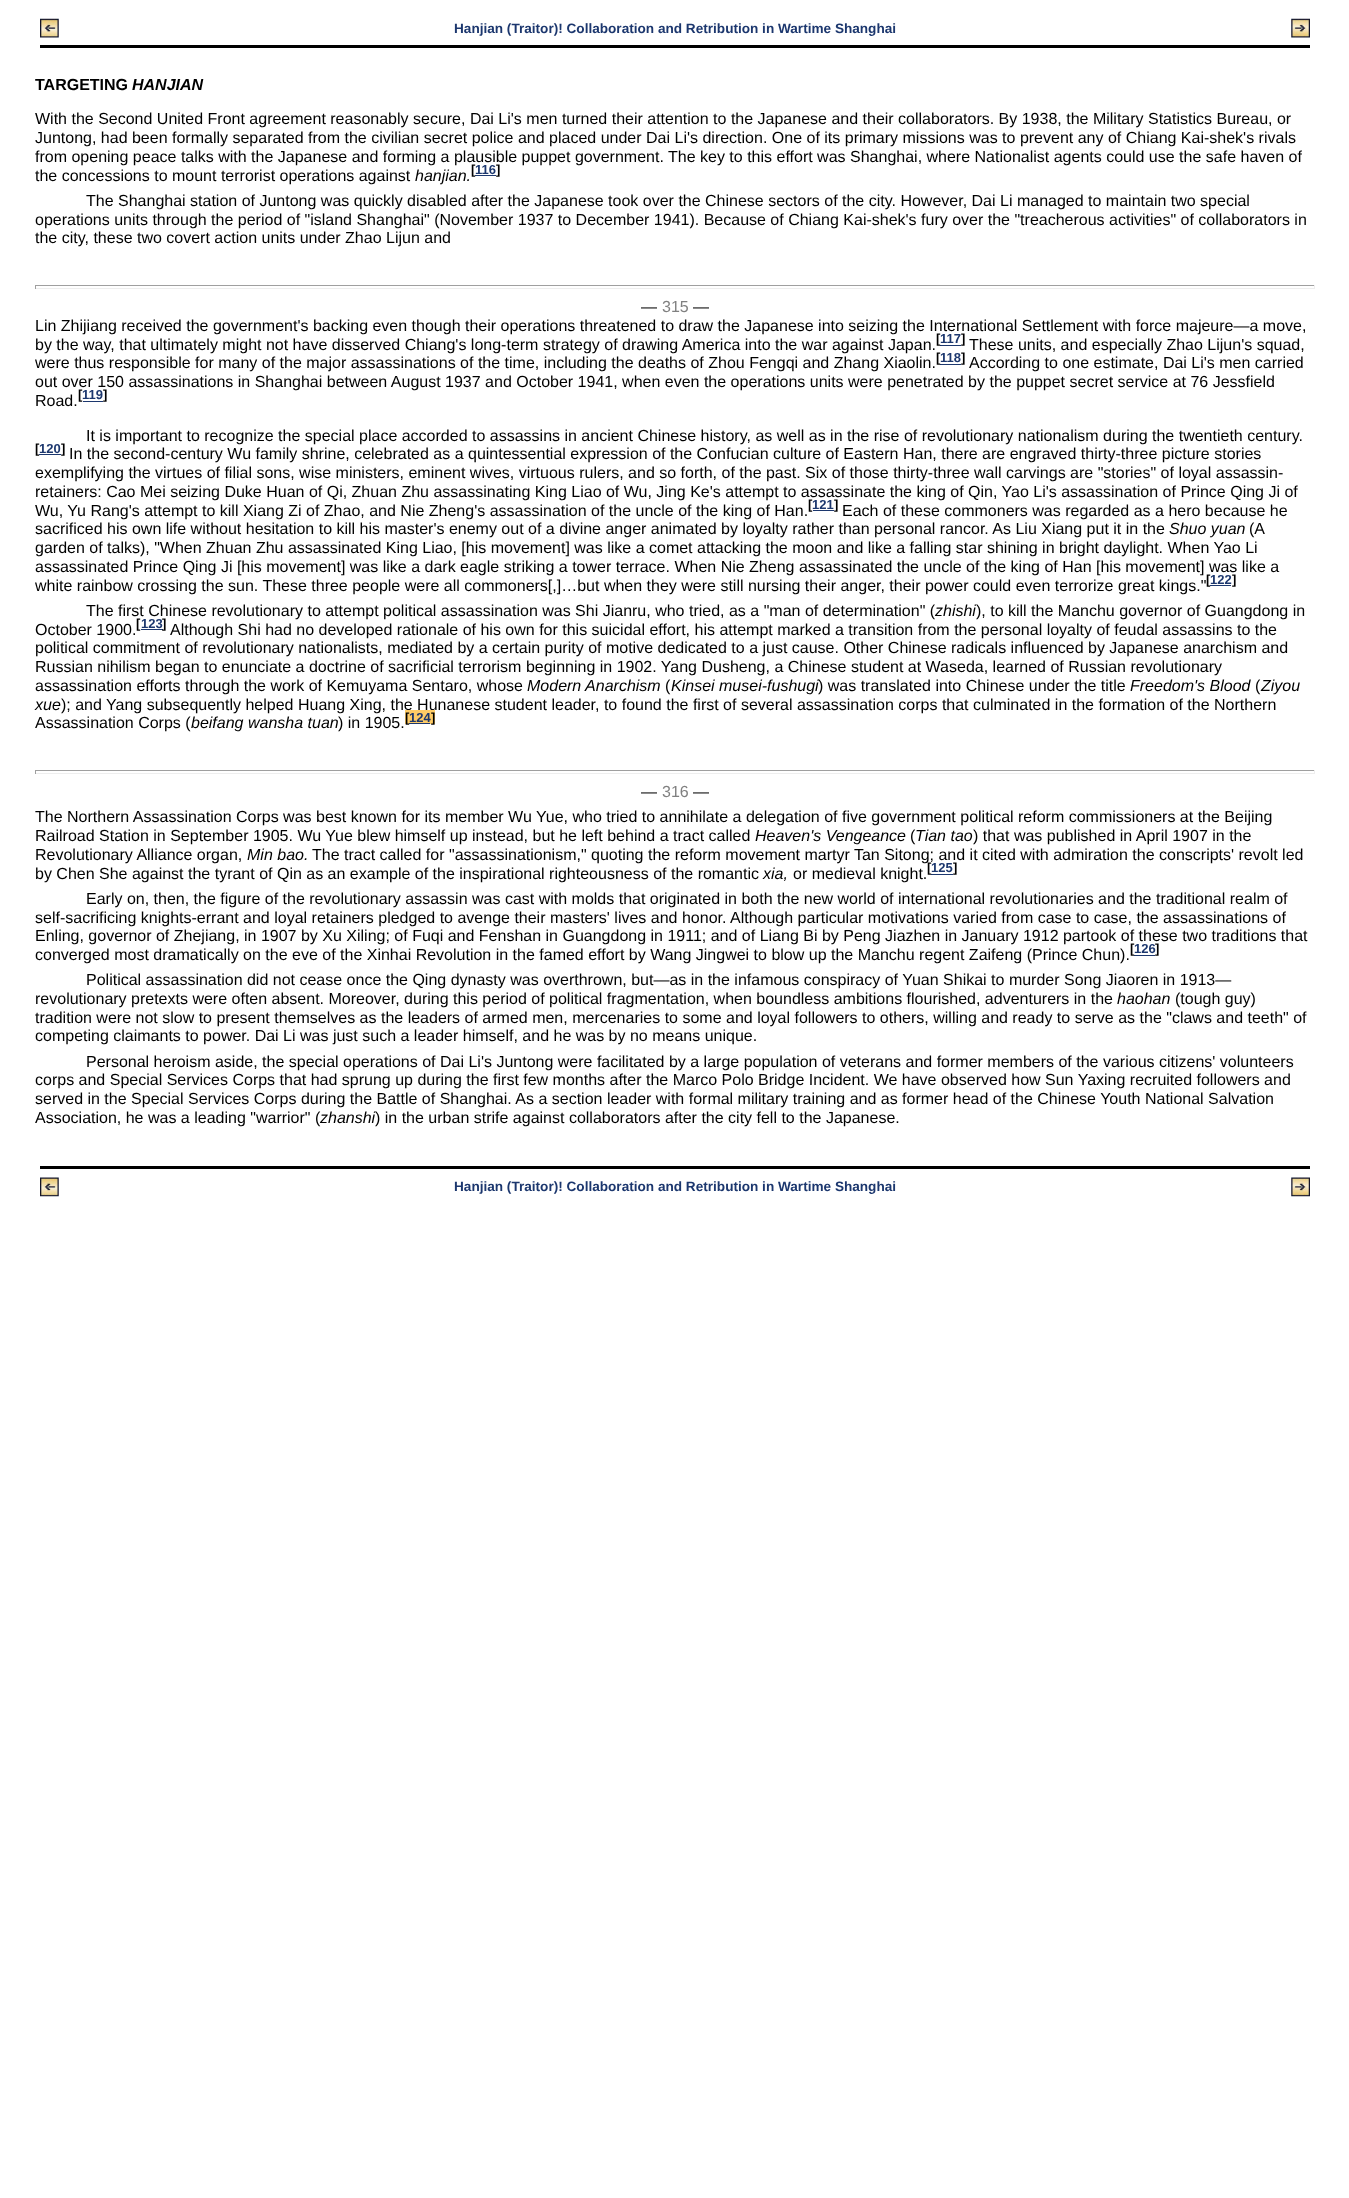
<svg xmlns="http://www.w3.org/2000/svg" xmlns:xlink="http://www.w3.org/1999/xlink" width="1349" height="2198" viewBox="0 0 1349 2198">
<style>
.cls-1{font:bold 13.6px Liberation Sans;fill:#1c376e}
.cls-2{font:bold 16px Liberation Sans;fill:#000000}
.cls-3{font:italic bold 16px Liberation Sans;fill:#000000}
.cls-4{font:16px Liberation Sans;fill:#000000}
.cls-5{font:italic 16px Liberation Sans;fill:#000000}
.cls-6{font:bold 13px Liberation Sans;fill:#000000}
.cls-7{font:bold 13px Liberation Sans;fill:#1c376e}
.cls-8{font:16px Liberation Sans;fill:#808080}
</style>
<rect width="100%" height="100%" fill="#ffffff"/>
<image xlink:href="image0.png" x="40" y="18" width="19" height="20"/>
<image xlink:href="image1.png" x="1291" y="18" width="19" height="20"/>
<rect fill="#000000" x="40" y="45" width="1270" height="3"/>
<rect fill="#1c376e" x="475" y="175" width="21" height="1"/>
<rect fill="#9f9f9f" x="35" y="285" width="1280" height="1"/>
<rect fill="#eeeeee" x="1314" y="285" width="1" height="4"/>
<rect fill="#eeeeee" x="35" y="288" width="1280" height="1"/>
<rect fill="#9f9f9f" x="35" y="285" width="1" height="4"/>
<rect fill="#1c376e" x="940" y="345" width="21" height="1"/>
<rect fill="#1c376e" x="940" y="364" width="21" height="1"/>
<rect fill="#1c376e" x="83" y="401" width="20" height="1"/>
<rect fill="#1c376e" x="813" y="510" width="21" height="1"/>
<rect fill="#1c376e" x="141" y="629" width="22" height="1"/>
<rect fill="#9f9f9f" x="35" y="770" width="1280" height="1"/>
<rect fill="#eeeeee" x="1314" y="770" width="1" height="4"/>
<rect fill="#eeeeee" x="35" y="773" width="1280" height="1"/>
<rect fill="#9f9f9f" x="35" y="770" width="1" height="4"/>
<rect fill="#1c376e" x="931" y="874" width="22" height="1"/>
<rect fill="#1c376e" x="1134" y="955" width="21" height="1"/>
<rect fill="#000000" x="40" y="1166" width="1270" height="3"/>
<image xlink:href="image2.png" x="40" y="1177" width="19" height="20"/>
<image xlink:href="image3.png" x="1291" y="1177" width="19" height="20"/>
<text class="cls-1" x="454" y="33">Hanjian (Traitor)! Collaboration and Retribution in Wartime Shanghai</text>
<text class="cls-2" x="35" y="90">TARGETING</text>
<text class="cls-3" x="132" y="90">HANJIAN</text>
<text class="cls-4"><tspan x="35" y="124">With the Second United Front agreement reasonably secure, Dai Li's men turned their attention to the Japanese and their collaborators. By 1938, the Military Statistics Bureau, or</tspan><tspan x="35" y="143">Juntong, had been formally separated from the civilian secret police and placed under Dai Li's direction. One of its primary missions was to prevent any of Chiang Kai-shek's rivals</tspan><tspan x="35" y="162">from opening peace talks with the Japanese and forming a plausible puppet government. The key to this effort was Shanghai, where Nationalist agents could use the safe haven of</tspan><tspan x="35" y="181">the concessions to mount terrorist operations against</tspan></text>
<text class="cls-5" x="415" y="181">hanjian.</text>
<text class="cls-6" x="471" y="174">[</text>
<text class="cls-7" x="475" y="174">116</text>
<text class="cls-6" x="496" y="174">]</text>
<text class="cls-4" x="86" y="206">The Shanghai station of Juntong was quickly disabled after the Japanese took over the Chinese sectors of the city. However, Dai Li managed to maintain two special</text>
<text class="cls-4"><tspan x="35" y="225">operations units through the period of "island Shanghai" (November 1937 to December 1941). Because of Chiang Kai-shek's fury over the "treacherous activities" of collaborators in</tspan><tspan x="35" y="243">the city, these two covert action units under Zhao Lijun and</tspan></text>
<text class="cls-4" x="641" y="312">―</text>
<text class="cls-8" x="662" y="312">315</text>
<text class="cls-4" x="693" y="312">―</text>
<text class="cls-4"><tspan x="35" y="331">Lin Zhijiang received the government's backing even though their operations threatened to draw the Japanese into seizing the International Settlement with force majeure—a move,</tspan><tspan x="35" y="350">by the way, that ultimately might not have disserved Chiang's long-term strategy of drawing America into the war against Japan.</tspan></text>
<text class="cls-6" x="936" y="343">[</text>
<text class="cls-7" x="940" y="343">117</text>
<text class="cls-6" x="961" y="343">]</text>
<text class="cls-4" x="969" y="350">These units, and especially Zhao Lijun's squad,</text>
<text class="cls-4" x="35" y="368">were thus responsible for many of the major assassinations of the time, including the deaths of Zhou Fengqi and Zhang Xiaolin.</text>
<text class="cls-6" x="936" y="362">[</text>
<text class="cls-7" x="940" y="362">118</text>
<text class="cls-6" x="961" y="362">]</text>
<text class="cls-4" x="969" y="368">According to one estimate, Dai Li's men carried</text>
<text class="cls-4"><tspan x="35" y="387">out over 150 assassinations in Shanghai between August 1937 and October 1941, when even the operations units were penetrated by the puppet secret service at 76 Jessfield</tspan><tspan x="35" y="406">Road.</tspan></text>
<text class="cls-6" x="78" y="399">[</text>
<text class="cls-7" x="82" y="399">119</text>
<text class="cls-6" x="103" y="399">]</text>
<text class="cls-4" x="86" y="441">It is important to recognize the special place accorded to assassins in ancient Chinese history, as well as in the rise of revolutionary nationalism during the twentieth century.</text>
<text class="cls-6" x="35" y="453">[</text>
<rect fill="#1c376e" x="39" y="454" width="22" height="1"/>
<text class="cls-7" x="39" y="453">120</text>
<text class="cls-6" x="61" y="453">]</text>
<text class="cls-4" x="69" y="459">In the second-century Wu family shrine, celebrated as a quintessential expression of the Confucian culture of Eastern Han, there are engraved thirty-three picture stories</text>
<text class="cls-4"><tspan x="35" y="478">exemplifying the virtues of filial sons, wise ministers, eminent wives, virtuous rulers, and so forth, of the past. Six of those thirty-three wall carvings are "stories" of loyal assassin-</tspan><tspan x="35" y="497">retainers: Cao Mei seizing Duke Huan of Qi, Zhuan Zhu assassinating King Liao of Wu, Jing Ke's attempt to assassinate the king of Qin, Yao Li's assassination of Prince Qing Ji of</tspan><tspan x="35" y="516">Wu, Yu Rang's attempt to kill Xiang Zi of Zhao, and Nie Zheng's assassination of the uncle of the king of Han.</tspan></text>
<text class="cls-6" x="808" y="509">[</text>
<text class="cls-7" x="812" y="509">121</text>
<text class="cls-6" x="834" y="509">]</text>
<text class="cls-4" x="842" y="516">Each of these commoners was regarded as a hero because he</text>
<text class="cls-4" x="35" y="534">sacrificed his own life without hesitation to kill his master's enemy out of a divine anger animated by loyalty rather than personal rancor. As Liu Xiang put it in the</text>
<text class="cls-5" x="1169" y="534">Shuo yuan</text>
<text class="cls-4" x="1249" y="534">(A</text>
<text class="cls-4"><tspan x="35" y="553">garden of talks), "When Zhuan Zhu assassinated King Liao, [his movement] was like a comet attacking the moon and like a falling star shining in bright daylight. When Yao Li</tspan><tspan x="35" y="572">assassinated Prince Qing Ji [his movement] was like a dark eagle striking a tower terrace. When Nie Zheng assassinated the uncle of the king of Han [his movement] was like a</tspan><tspan x="35" y="591">white rainbow crossing the sun. These three people were all commoners[,]…but when they were still nursing their anger, their power could even terrorize great kings."</tspan></text>
<text class="cls-6" x="1206" y="584">[</text>
<rect fill="#1c376e" x="1210" y="585" width="21" height="1"/>
<text class="cls-7" x="1210" y="584">122</text>
<text class="cls-6" x="1232" y="584">]</text>
<text class="cls-4" x="86" y="616">The first Chinese revolutionary to attempt political assassination was Shi Jianru, who tried, as a "man of determination" (</text>
<text class="cls-5" x="935" y="616">zhishi</text>
<text class="cls-4" x="976" y="616">), to kill the Manchu governor of Guangdong in</text>
<text class="cls-4" x="35" y="635">October 1900.</text>
<text class="cls-6" x="136" y="628">[</text>
<text class="cls-7" x="141" y="628">123</text>
<text class="cls-6" x="162" y="628">]</text>
<text class="cls-4" x="170" y="635">Although Shi had no developed rationale of his own for this suicidal effort, his attempt marked a transition from the personal loyalty of feudal assassins to the</text>
<text class="cls-4"><tspan x="35" y="653">political commitment of revolutionary nationalists, mediated by a certain purity of motive dedicated to a just cause. Other Chinese radicals influenced by Japanese anarchism and</tspan><tspan x="35" y="672">Russian nihilism began to enunciate a doctrine of sacrificial terrorism beginning in 1902. Yang Dusheng, a Chinese student at Waseda, learned of Russian revolutionary</tspan><tspan x="35" y="691">assassination efforts through the work of Kemuyama Sentaro, whose</tspan></text>
<text class="cls-5" x="527" y="691">Modern Anarchism</text>
<text class="cls-4" x="665" y="691">(</text>
<text class="cls-5" x="671" y="691">Kinsei musei-fushugi</text>
<text class="cls-4" x="818" y="691">) was translated into Chinese under the title</text>
<text class="cls-5" x="1130" y="691">Freedom's Blood</text>
<text class="cls-4" x="1255" y="691">(</text>
<text class="cls-5" x="1261" y="691">Ziyou</text>
<text class="cls-5" x="35" y="710">xue</text>
<text class="cls-4" x="61" y="710">); and Yang subsequently helped Huang Xing, the Hunanese student leader, to found the first of several assassination corps that culminated in the formation of the Northern</text>
<text class="cls-4" x="35" y="728">Assassination Corps (</text>
<text class="cls-5" x="191" y="728">beifang wansha tuan</text>
<text class="cls-4" x="338" y="728">) in 1905.</text>
<rect fill="#ffcc66" x="405" y="710" width="4" height="14"/>
<rect fill="#ffcc66" x="409" y="710" width="21" height="13"/>
<text class="cls-6" x="405" y="722">[</text>
<rect fill="#1c376e" x="409" y="723" width="21" height="1"/>
<rect fill="#ffcc66" x="430" y="710" width="5" height="14"/>
<text class="cls-7" x="409" y="722">124</text>
<text class="cls-6" x="431" y="722">]</text>
<text class="cls-4" x="641" y="797">―</text>
<text class="cls-8" x="662" y="797">316</text>
<text class="cls-4" x="693" y="797">―</text>
<text class="cls-4"><tspan x="35" y="822">The Northern Assassination Corps was best known for its member Wu Yue, who tried to annihilate a delegation of five government political reform commissioners at the Beijing</tspan><tspan x="35" y="841">Railroad Station in September 1905. Wu Yue blew himself up instead, but he left behind a tract called</tspan></text>
<text class="cls-5" x="755" y="841">Heaven's Vengeance</text>
<text class="cls-4" x="910" y="841">(</text>
<text class="cls-5" x="915" y="841">Tian tao</text>
<text class="cls-4" x="973" y="841">) that was published in April 1907 in the</text>
<text class="cls-4" x="35" y="860">Revolutionary Alliance organ,</text>
<text class="cls-5" x="247" y="860">Min bao.</text>
<text class="cls-4" x="312" y="860">The tract called for "assassinationism," quoting the reform movement martyr Tan Sitong; and it cited with admiration the conscripts' revolt led</text>
<text class="cls-4" x="35" y="879">by Chen She against the tyrant of Qin as an example of the inspirational righteousness of the romantic</text>
<text class="cls-5" x="763" y="879">xia,</text>
<text class="cls-4" x="793" y="879">or medieval knight.</text>
<text class="cls-6" x="927" y="872">[</text>
<text class="cls-7" x="931" y="872">125</text>
<text class="cls-6" x="953" y="872">]</text>
<text class="cls-4" x="86" y="904">Early on, then, the figure of the revolutionary assassin was cast with molds that originated in both the new world of international revolutionaries and the traditional realm of</text>
<text class="cls-4"><tspan x="35" y="923">self-sacrificing knights-errant and loyal retainers pledged to avenge their masters' lives and honor. Although particular motivations varied from case to case, the assassinations of</tspan><tspan x="35" y="941">Enling, governor of Zhejiang, in 1907 by Xu Xiling; of Fuqi and Fenshan in Guangdong in 1911; and of Liang Bi by Peng Jiazhen in January 1912 partook of these two traditions that</tspan><tspan x="35" y="960">converged most dramatically on the eve of the Xinhai Revolution in the famed effort by Wang Jingwei to blow up the Manchu regent Zaifeng (Prince Chun).</tspan></text>
<text class="cls-6" x="1130" y="953">[</text>
<text class="cls-7" x="1134" y="953">126</text>
<text class="cls-6" x="1155" y="953">]</text>
<text class="cls-4" x="86" y="985">Political assassination did not cease once the Qing dynasty was overthrown, but—as in the infamous conspiracy of Yuan Shikai to murder Song Jiaoren in 1913—</text>
<text class="cls-4" x="35" y="1004">revolutionary pretexts were often absent. Moreover, during this period of political fragmentation, when boundless ambitions flourished, adventurers in the</text>
<text class="cls-5" x="1117" y="1004">haohan</text>
<text class="cls-4" x="1175" y="1004">(tough guy)</text>
<text class="cls-4"><tspan x="35" y="1023">tradition were not slow to present themselves as the leaders of armed men, mercenaries to some and loyal followers to others, willing and ready to serve as the "claws and teeth" of</tspan><tspan x="35" y="1041">competing claimants to power. Dai Li was just such a leader himself, and he was by no means unique.</tspan></text>
<text class="cls-4" x="86" y="1067">Personal heroism aside, the special operations of Dai Li's Juntong were facilitated by a large population of veterans and former members of the various citizens' volunteers</text>
<text class="cls-4"><tspan x="35" y="1085">corps and Special Services Corps that had sprung up during the first few months after the Marco Polo Bridge Incident. We have observed how Sun Yaxing recruited followers and</tspan><tspan x="35" y="1104">served in the Special Services Corps during the Battle of Shanghai. As a section leader with formal military training and as former head of the Chinese Youth National Salvation</tspan><tspan x="35" y="1123">Association, he was a leading "warrior" (</tspan></text>
<text class="cls-5" x="320" y="1123">zhanshi</text>
<text class="cls-4" x="375" y="1123">) in the urban strife against collaborators after the city fell to the Japanese.</text>
<text class="cls-1" x="454" y="1191">Hanjian (Traitor)! Collaboration and Retribution in Wartime Shanghai</text>
</svg>
